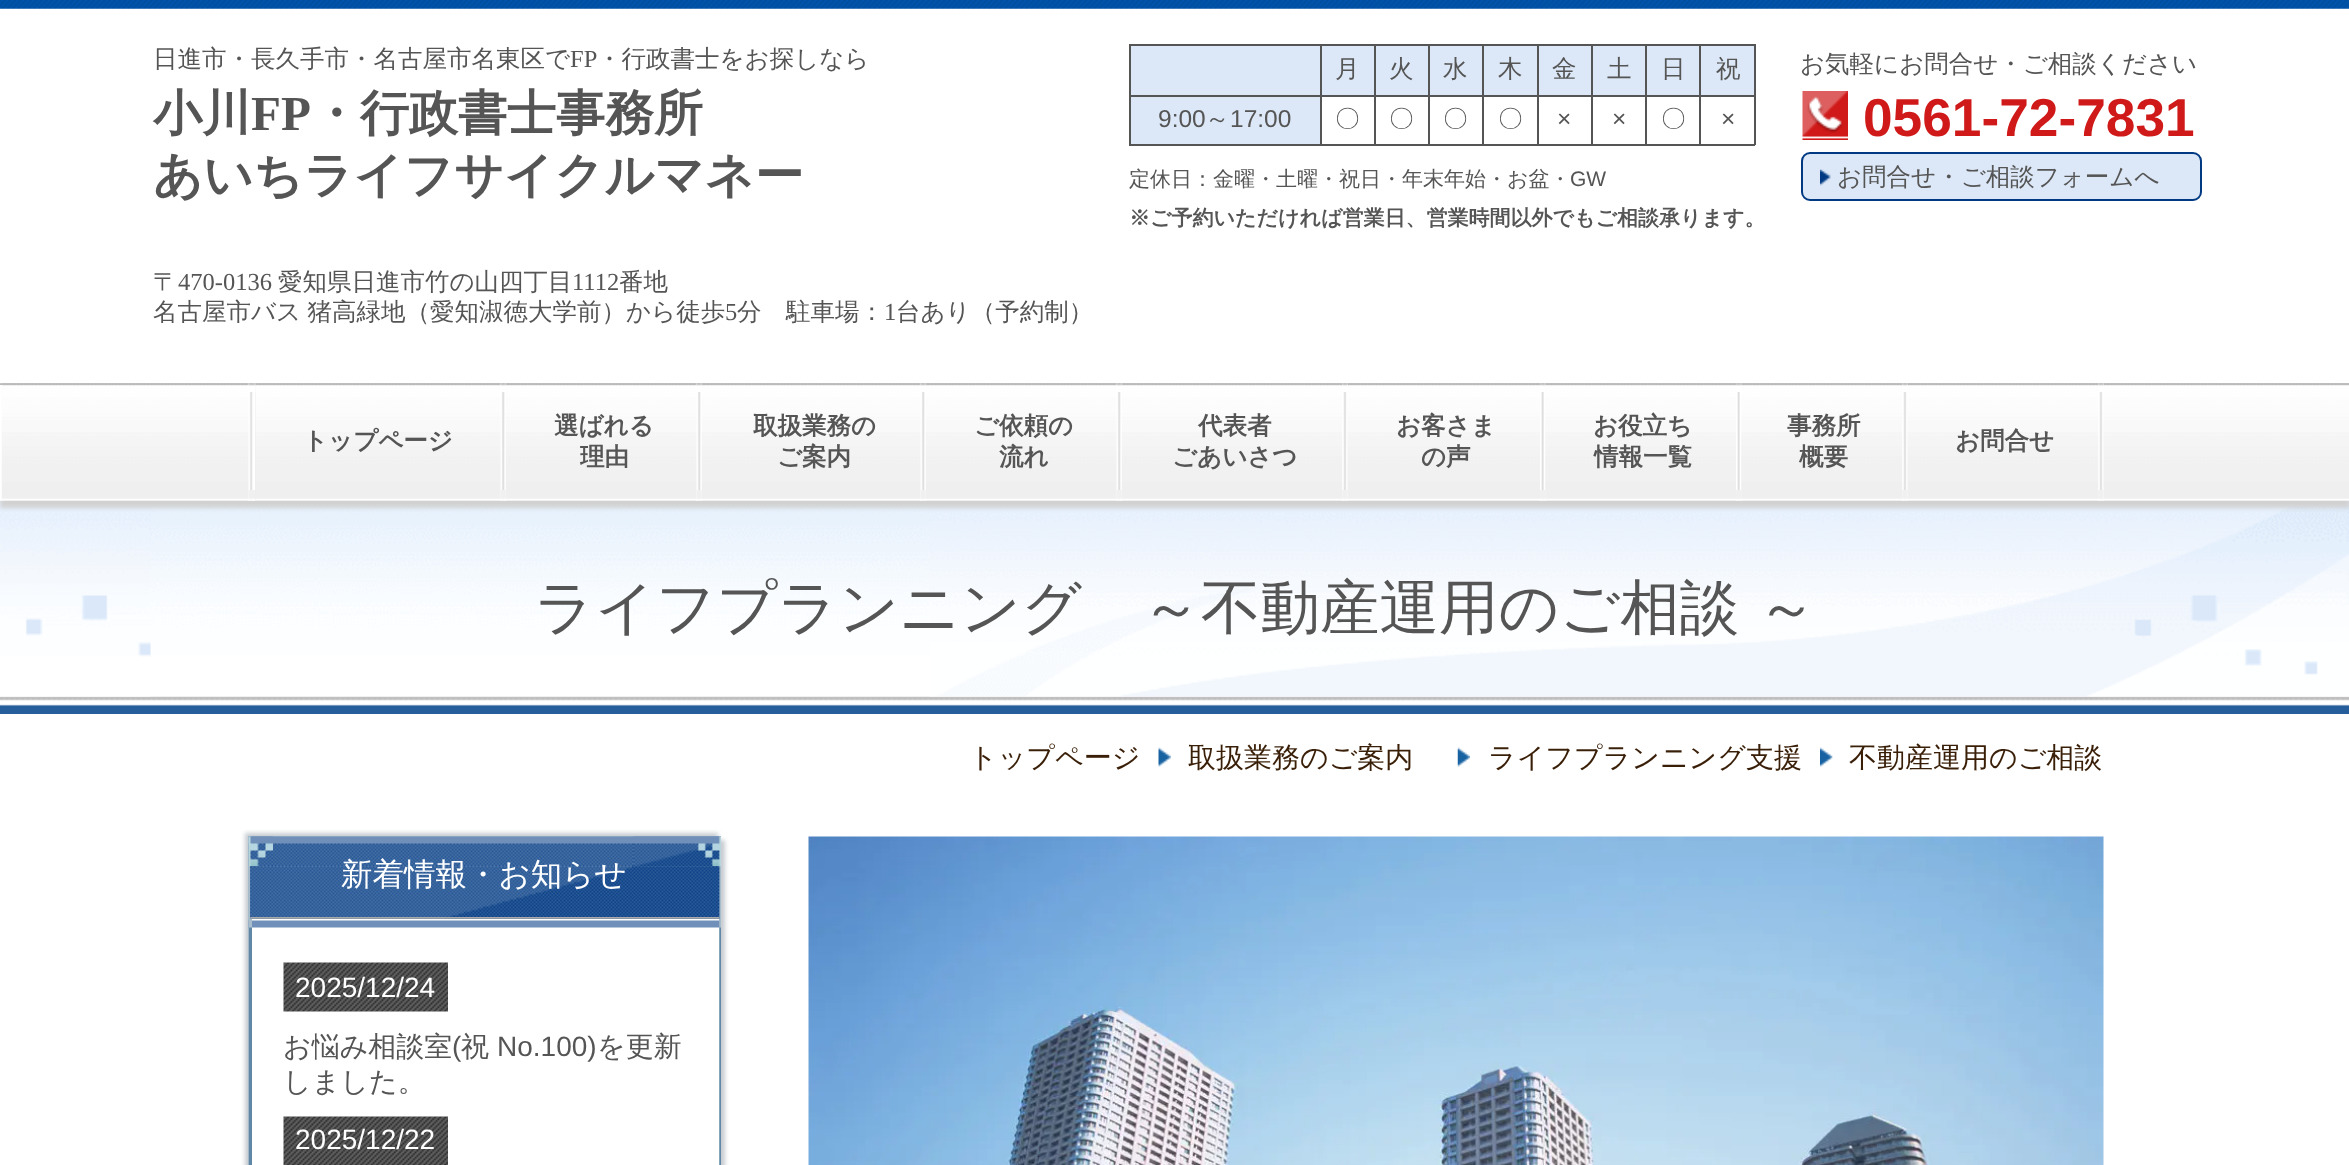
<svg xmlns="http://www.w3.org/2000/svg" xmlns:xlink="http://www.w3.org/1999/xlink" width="2349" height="1165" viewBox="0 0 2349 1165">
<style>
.cls-1{font:500 24.5px WenQuanYi Zen Hei;fill:#555555}
.cls-2{font:24.5px Liberation Serif;fill:#555555}
.cls-3{font:bold 49px WenQuanYi Zen Hei;fill:#555555}
.cls-4{font:bold 49px Liberation Serif;fill:#555555}
.cls-5{font:24.5px Liberation Sans;fill:#555555}
.cls-6{font:500 21px WenQuanYi Zen Hei;fill:#555555}
.cls-7{font:21px Liberation Sans;fill:#555555}
.cls-8{font:bold 21px WenQuanYi Zen Hei;fill:#555555}
.cls-9{font:bold 53.25px Liberation Sans;fill:#d01a1a}
.cls-10{font:bold 24.5px WenQuanYi Zen Hei;fill:#555555}
.cls-11{font:500 59.5px WenQuanYi Zen Hei;fill:#555555}
.cls-12{font:500 28px WenQuanYi Zen Hei;fill:#3a1f08}
.cls-13{font:500 31.5px WenQuanYi Zen Hei;fill:#ffffff}
.cls-14{font:28px Liberation Sans;fill:#ffffff}
.cls-15{font:500 28px WenQuanYi Zen Hei;fill:#555555}
.cls-16{font:28px Liberation Sans;fill:#555555}
</style>
<rect width="100%" height="100%" fill="#ffffff"/>
<image xlink:href="image0.png" x="0" y="0" width="2349" height="9"/>
<rect fill="#555555" x="1754" y="44" width="2" height="101"/>
<rect fill="#555555" x="1129" y="95" width="626" height="2"/>
<rect fill="#dce8f7" x="1131" y="46" width="189" height="49"/>
<rect fill="#555555" x="1699" y="44" width="56" height="2"/>
<rect fill="#555555" x="1129" y="144" width="626" height="2"/>
<rect fill="#555555" x="1699" y="95" width="2" height="50"/>
<rect fill="#555555" x="1699" y="44" width="2" height="52"/>
<rect fill="#555555" x="1645" y="44" width="56" height="2"/>
<rect fill="#555555" x="1645" y="95" width="2" height="50"/>
<rect fill="#555555" x="1645" y="44" width="2" height="52"/>
<rect fill="#555555" x="1591" y="44" width="56" height="2"/>
<rect fill="#555555" x="1591" y="95" width="2" height="50"/>
<rect fill="#555555" x="1591" y="44" width="2" height="52"/>
<rect fill="#555555" x="1537" y="44" width="56" height="2"/>
<rect fill="#555555" x="1537" y="95" width="2" height="50"/>
<rect fill="#555555" x="1537" y="44" width="2" height="52"/>
<rect fill="#555555" x="1482" y="44" width="56" height="2"/>
<rect fill="#555555" x="1482" y="95" width="2" height="50"/>
<rect fill="#555555" x="1482" y="44" width="2" height="52"/>
<rect fill="#555555" x="1428" y="44" width="56" height="2"/>
<rect fill="#555555" x="1428" y="95" width="2" height="50"/>
<rect fill="#555555" x="1428" y="44" width="2" height="52"/>
<rect fill="#555555" x="1374" y="44" width="56" height="2"/>
<rect fill="#555555" x="1374" y="95" width="2" height="50"/>
<rect fill="#555555" x="1374" y="44" width="2" height="52"/>
<rect fill="#555555" x="1320" y="44" width="56" height="2"/>
<rect fill="#555555" x="1320" y="95" width="2" height="50"/>
<rect fill="#555555" x="1320" y="44" width="2" height="52"/>
<rect fill="#555555" x="1129" y="44" width="192" height="2"/>
<rect fill="#555555" x="1129" y="95" width="2" height="50"/>
<rect fill="#555555" x="1129" y="44" width="2" height="52"/>
<rect fill="#dce8f7" x="1322" y="46" width="52" height="49"/>
<rect fill="#dce8f7" x="1376" y="46" width="52" height="49"/>
<rect fill="#dce8f7" x="1430" y="46" width="52" height="49"/>
<rect fill="#dce8f7" x="1484" y="46" width="53" height="49"/>
<rect fill="#dce8f7" x="1539" y="46" width="52" height="49"/>
<rect fill="#dce8f7" x="1593" y="46" width="52" height="49"/>
<rect fill="#dce8f7" x="1647" y="46" width="52" height="49"/>
<rect fill="#dce8f7" x="1701" y="46" width="53" height="49"/>
<rect fill="#dce8f7" x="1131" y="97" width="189" height="47"/>
<image xlink:href="image1.png" x="1802" y="91" width="46" height="49"/>
<rect fill="#dce8f7" stroke="#013a83" stroke-width="2" x="1802" y="153" width="399" height="47" rx="8"/>
<image xlink:href="image2.png" x="1820" y="169" width="11" height="17"/>
<image xlink:href="image11.png" x="0" y="696" width="2349" height="18"/>
<image xlink:href="image12.png" x="0" y="500" width="2349" height="197"/>
<rect fill="#d1d1d1" filter="blur(2px)" x="0" y="390" width="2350" height="118"/>
<image xlink:href="image3.png" x="0" y="383" width="2349" height="118"/>
<image xlink:href="image4.png" x="248" y="383" width="8" height="118"/>
<image xlink:href="image5.png" x="500" y="383" width="6" height="118"/>
<image xlink:href="image5.png" x="696" y="383" width="6" height="118"/>
<image xlink:href="image6.png" x="920" y="383" width="6" height="118"/>
<image xlink:href="image7.png" x="1116" y="383" width="6" height="118"/>
<image xlink:href="image8.png" x="1342" y="383" width="6" height="118"/>
<image xlink:href="image9.png" x="1540" y="383" width="6" height="118"/>
<image xlink:href="image9.png" x="1736" y="383" width="6" height="118"/>
<image xlink:href="image10.png" x="1902" y="383" width="6" height="118"/>
<image xlink:href="image10.png" x="2098" y="383" width="6" height="118"/>
<image xlink:href="image13.png" x="1158" y="747" width="13" height="20"/>
<image xlink:href="image14.png" x="1457" y="747" width="13" height="20"/>
<image xlink:href="image15.png" x="1820" y="747" width="13" height="20"/>
<rect fill="#c7ccd1" filter="blur(2px)" x="245" y="833" width="473" height="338"/>
<rect fill="#c7ccd1" filter="blur(2px)" x="252" y="840" width="473" height="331"/>
<image xlink:href="image16.png" x="248" y="836" width="473" height="329"/>
<image xlink:href="image17.png" x="248" y="836" width="473" height="92"/>
<image xlink:href="image18.png" x="250" y="866" width="470" height="53"/>
<image xlink:href="image19.png" x="283" y="962" width="165" height="50"/>
<image xlink:href="image20.png" x="283" y="1116" width="165" height="49"/>
<image xlink:href="image21.png" x="808" y="836" width="1296" height="329"/>
<text class="cls-1" x="153" y="67">日進市・長久手市・名古屋市名東区で</text>
<text class="cls-2" x="570" y="67">FP</text>
<text class="cls-1" x="597" y="67">・行政書士をお探しなら</text>
<text class="cls-3" x="153" y="130">小川</text>
<text class="cls-4" x="251" y="130">FP</text>
<text class="cls-3" x="311" y="130">・行政書士事務所</text>
<text class="cls-3" x="153" y="192">あいちライフサイクルマネー</text>
<text class="cls-1" x="153" y="290">〒</text>
<text class="cls-2" x="178" y="290">470-0136</text>
<text class="cls-1" x="278" y="290">愛知県日進市竹の山四丁目</text>
<text class="cls-2" x="572" y="290">1112</text>
<text class="cls-1" x="619" y="290">番地</text>
<text class="cls-1" x="153" y="320" word-spacing="-1">名古屋市バス 猪高緑地（愛知淑徳大学前）から徒歩</text>
<text class="cls-2" x="725" y="320">5</text>
<text class="cls-1" x="737" y="320">分　駐車場：</text>
<text class="cls-2" x="884" y="320">1</text>
<text class="cls-1" x="896" y="320">台あり（予約制）</text>
<text class="cls-1" x="1335" y="77">月</text>
<text class="cls-1" x="1389" y="77">火</text>
<text class="cls-1" x="1443" y="77">水</text>
<text class="cls-1" x="1498" y="77">木</text>
<text class="cls-1" x="1552" y="77">金</text>
<text class="cls-1" x="1607" y="77">土</text>
<text class="cls-1" x="1661" y="77">日</text>
<text class="cls-1" x="1716" y="77">祝</text>
<text class="cls-5" x="1158" y="127">9:00</text>
<text class="cls-1" x="1205" y="127">～</text>
<text class="cls-5" x="1230" y="127">17:00</text>
<text class="cls-1" x="1335" y="127">〇</text>
<text class="cls-1" x="1389" y="127">〇</text>
<text class="cls-1" x="1443" y="127">〇</text>
<text class="cls-1" x="1498" y="127">〇</text>
<text class="cls-5" x="1557" y="127">×</text>
<text class="cls-5" x="1612" y="127">×</text>
<text class="cls-1" x="1661" y="127">〇</text>
<text class="cls-5" x="1721" y="127">×</text>
<text class="cls-6" x="1129" y="186">定休日：金曜・土曜・祝日・年末年始・お盆・</text>
<text class="cls-7" x="1570" y="186">GW</text>
<text class="cls-8" x="1129" y="225">※ご予約いただければ営業日、営業時間以外でもご相談承ります。</text>
<text class="cls-1" x="1800" y="72">お気軽にお問合せ・ご相談ください</text>
<text class="cls-9" x="1863" y="136">0561-72-7831</text>
<text class="cls-1" x="1837" y="185">お問合せ・ご相談フォームへ</text>
<text class="cls-10" x="303" y="449">トップページ</text>
<text class="cls-10" x="554" y="434">選ばれる</text>
<text class="cls-10" x="580" y="465">理由</text>
<text class="cls-10" x="753" y="434">取扱業務の</text>
<text class="cls-10" x="777" y="465">ご案内</text>
<text class="cls-10" x="974" y="434">ご依頼の</text>
<text class="cls-10" x="999" y="465">流れ</text>
<text class="cls-10" x="1198" y="434">代表者</text>
<text class="cls-10" x="1172" y="465">ごあいさつ</text>
<text class="cls-10" x="1396" y="434">お客さま</text>
<text class="cls-10" x="1421" y="465">の声</text>
<text class="cls-10" x="1593" y="434">お役立ち</text>
<text class="cls-10" x="1594" y="465">情報一覧</text>
<text class="cls-10" x="1787" y="434">事務所</text>
<text class="cls-10" x="1799" y="465">概要</text>
<text class="cls-10" x="1955" y="449">お問合せ</text>
<text class="cls-11" x="534" y="628">ライフプランニング　～不動産運用のご相談</text>
<text class="cls-11" x="1757" y="628">～</text>
<text class="cls-12" x="969" y="767">トップページ</text>
<text class="cls-12" x="1188" y="767">取扱業務のご案内</text>
<text class="cls-12" x="1488" y="767">ライフプランニング支援</text>
<text class="cls-12" x="1849" y="767">不動産運用のご相談</text>
<text class="cls-13" x="341" y="885">新着情報・お知らせ</text>
<text class="cls-14" x="295" y="997">2025/12/24</text>
<text class="cls-15" x="283" y="1056">お悩み相談室</text>
<text class="cls-16" x="452" y="1056">(</text>
<text class="cls-15" x="461" y="1056">祝</text>
<text class="cls-16" x="497" y="1056">No.100)</text>
<text class="cls-15" x="597" y="1056">を更新</text>
<text class="cls-15" x="283" y="1091">しました。</text>
<text class="cls-14" x="295" y="1149">2025/12/22</text>
</svg>
